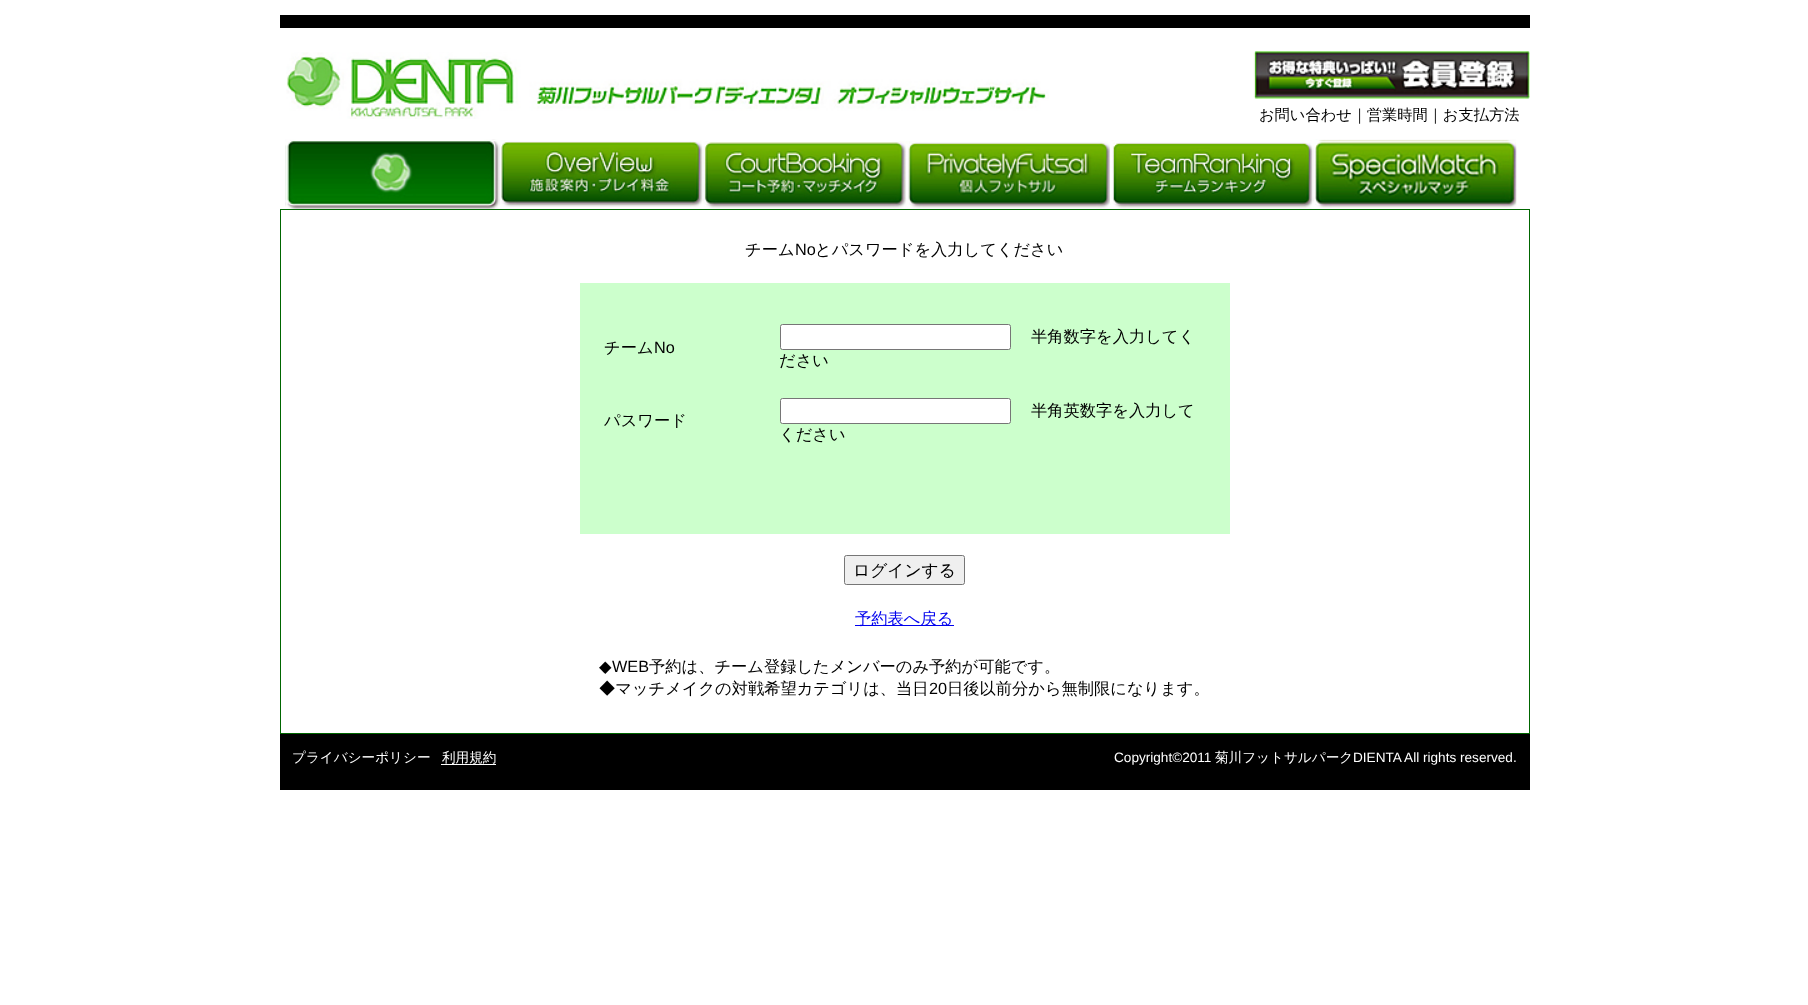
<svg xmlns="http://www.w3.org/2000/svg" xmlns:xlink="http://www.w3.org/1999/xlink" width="1808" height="1005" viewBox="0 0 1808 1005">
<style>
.cls-1{font:500 15.25px WenQuanYi Zen Hei;fill:#000000}
.cls-2{font:500 16.25px WenQuanYi Zen Hei;fill:#000000}
.cls-3{font:16.25px Liberation Sans;fill:#000000}
.cls-4{font:500 16.75px WenQuanYi Zen Hei;fill:#000000}
.cls-5{font:500 16.25px WenQuanYi Zen Hei;fill:#0000ee}
.cls-6{font:16.25px DejaVu Sans;fill:#000000}
.cls-7{font:500 13.6px WenQuanYi Zen Hei;fill:#ffffff}
.cls-8{font:13.6px Liberation Sans;fill:#ffffff}
</style>
<rect width="100%" height="100%" fill="#ffffff"/>
<rect fill="#000000" x="280" y="15" width="1250" height="13"/>
<image xlink:href="image0.png" x="286" y="52" width="763" height="67"/>
<image xlink:href="image1.png" x="1253" y="51" width="277" height="48"/>
<image xlink:href="image2.png" x="285" y="139" width="214" height="70"/>
<image xlink:href="image3.png" x="498" y="140" width="205" height="67"/>
<image xlink:href="image4.png" x="702" y="141" width="205" height="68"/>
<image xlink:href="image5.png" x="906" y="141" width="204" height="68"/>
<image xlink:href="image6.png" x="1110" y="140" width="203" height="69"/>
<image xlink:href="image7.png" x="1312" y="139" width="205" height="69"/>
<rect fill="#006600" x="280" y="209" width="1250" height="525"/>
<rect fill="#ffffff" x="281" y="210" width="1248" height="523"/>
<rect fill="#ccffcc" x="580" y="283" width="650" height="251"/>
<rect fill="#ffffff" stroke="#767676" x="780.5" y="324.5" width="230" height="25" rx="2"/>
<rect fill="#ffffff" stroke="#767676" x="780.5" y="398.5" width="230" height="25" rx="2"/>
<rect fill="#efefef" stroke="#767676" x="844.5" y="555.5" width="120" height="29" rx="2"/>
<rect fill="#0000ee" x="855" y="625" width="99" height="1"/>
<rect fill="#000000" x="280" y="734" width="1250" height="56"/>
<rect fill="#ffffff" x="441" y="764" width="55" height="1"/>
<text class="cls-1" x="1259" y="120">お問い合わせ｜営業時間｜お支払方法</text>
<text class="cls-2" x="745" y="255">チーム</text>
<text class="cls-3" x="795" y="255">No</text>
<text class="cls-2" x="815" y="255">とパスワードを入力してください</text>
<text class="cls-2" x="604" y="353">チーム</text>
<text class="cls-3" x="654" y="353">No</text>
<text class="cls-2" x="1031" y="342">半角数字を入力してく</text>
<text class="cls-2" x="779" y="366">ださい</text>
<text class="cls-2" x="604" y="426">パスワード</text>
<text class="cls-2" x="1031" y="416">半角英数字を入力して</text>
<text class="cls-2" x="779" y="440">ください</text>
<text class="cls-4" x="853" y="576">ログインする</text>
<text class="cls-5" x="855" y="624">予約表へ戻る</text>
<text class="cls-6" x="599" y="672">◆</text>
<text class="cls-3" x="612" y="672">WEB</text>
<text class="cls-2" x="649" y="672">予約は、チーム登録したメンバーのみ予約が可能です。</text>
<text class="cls-2" x="599" y="694">◆マッチメイクの対戦希望カテゴリは、当日</text>
<text class="cls-3" x="929" y="694">20</text>
<text class="cls-2" x="947" y="694">日後以前分から無制限になります。</text>
<text class="cls-7" x="292" y="762">プライバシーポリシー</text>
<text class="cls-7" x="442" y="762">利用規約</text>
<text class="cls-8" x="1114" y="762">Copyright©2011</text>
<text class="cls-7" x="1215" y="762">菊川フットサルパーク</text>
<text class="cls-8" x="1353" y="762">DIENTA All rights reserved.</text>
</svg>
